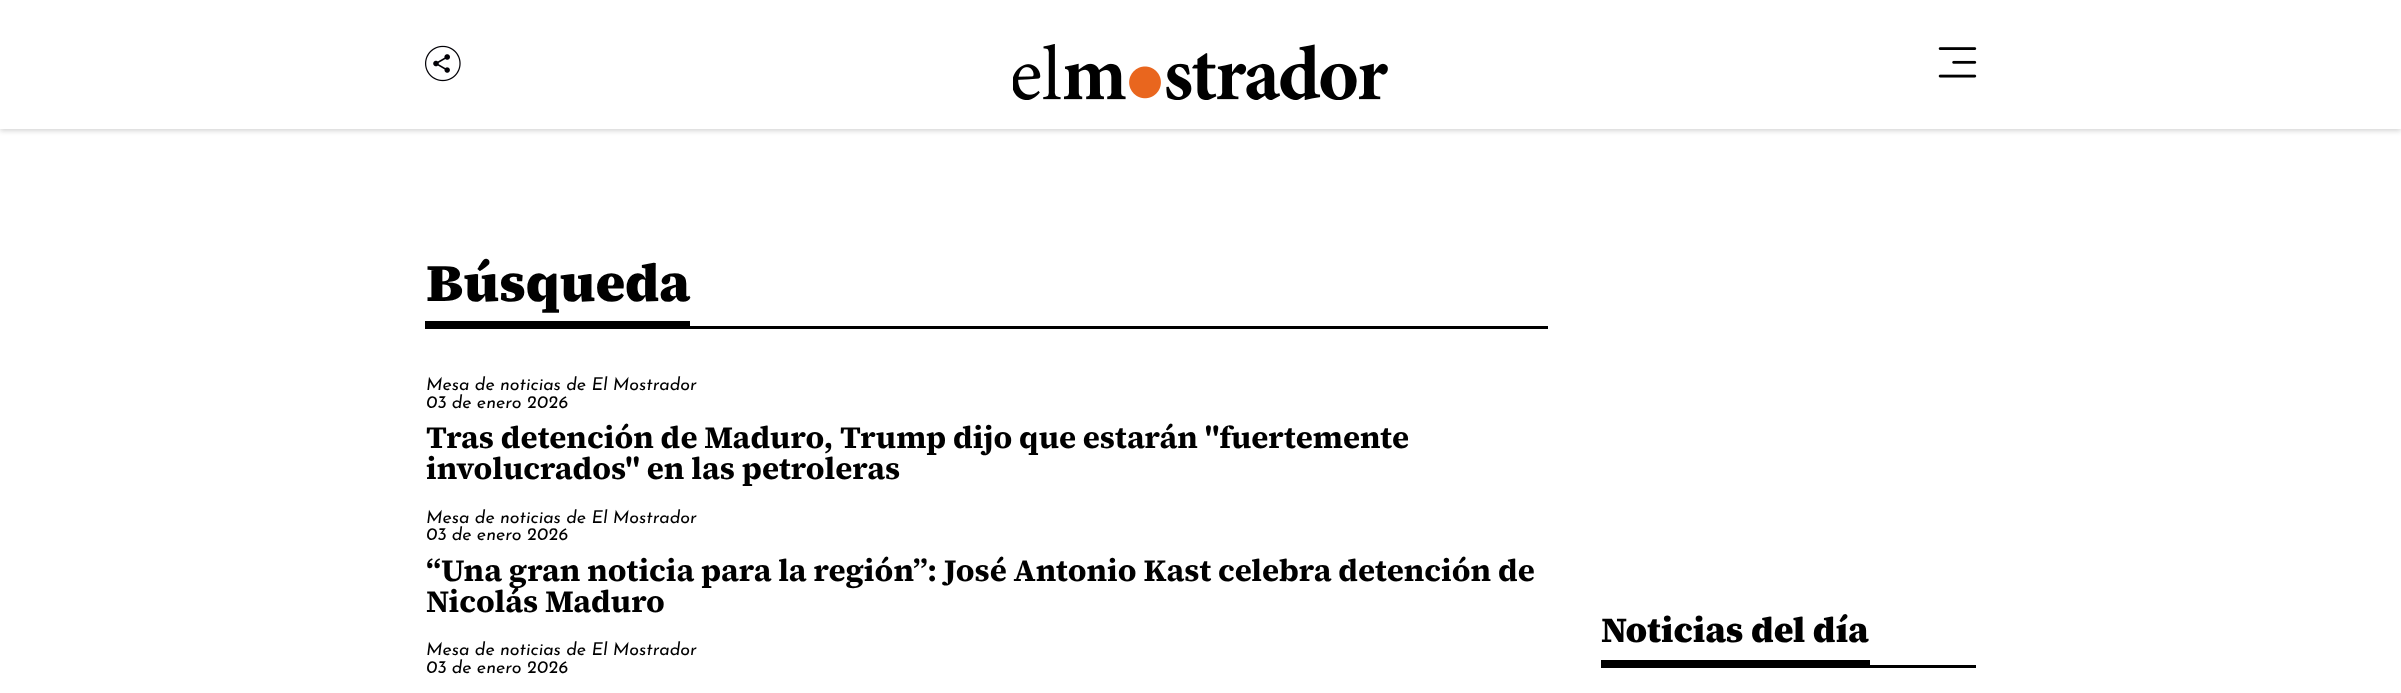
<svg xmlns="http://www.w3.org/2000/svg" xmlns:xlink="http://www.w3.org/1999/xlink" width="2401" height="693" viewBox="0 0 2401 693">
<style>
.cls-1{font:900 53.5px 'Source Serif 4';fill:#000000}
.cls-2{font:italic 17.8px Josefin Sans;fill:#000000}
.cls-3{font:bold 31.2px 'Source Serif 4';fill:#000000}
.cls-4{font:900 35.5px 'Source Serif 4';fill:#000000}
</style>
<rect width="100%" height="100%" fill="#ffffff"/>
<rect fill="#000000" fill-opacity="0.16" filter="blur(2.5px)" x="0" y="3" width="2401" height="128"/>
<rect fill="#ffffff" x="0" y="0" width="2401" height="129"/>
<image xlink:href="image0.png" x="425" y="45" width="36" height="37"/>
<image xlink:href="image1.png" x="1013" y="44" width="375" height="56"/>
<image xlink:href="image2.png" x="1938" y="47" width="39" height="31"/>
<rect fill="#000000" x="425" y="326" width="1123" height="3"/>
<rect fill="#000000" x="425" y="321" width="265" height="5"/>
<rect fill="#000000" x="1601" y="665" width="375" height="3"/>
<rect fill="#000000" x="1601" y="660" width="269" height="5"/>
<text class="cls-1" x="426" y="301">Búsqueda</text>
<text class="cls-2"><tspan x="426" y="390">Mesa de noticias de El Mostrador</tspan><tspan x="426" y="408">03 de enero 2026</tspan></text>
<text class="cls-3"><tspan x="426" y="448">Tras detención de Maduro, Trump dijo que estarán "fuertemente</tspan><tspan x="426" y="479">involucrados" en las petroleras</tspan></text>
<text class="cls-2"><tspan x="426" y="523">Mesa de noticias de El Mostrador</tspan><tspan x="426" y="540">03 de enero 2026</tspan></text>
<text class="cls-3"><tspan x="426" y="581">“Una gran noticia para la región”: José Antonio Kast celebra detención de</tspan><tspan x="426" y="612">Nicolás Maduro</tspan></text>
<text class="cls-2"><tspan x="426" y="655">Mesa de noticias de El Mostrador</tspan><tspan x="426" y="673">03 de enero 2026</tspan></text>
<text class="cls-4" x="1601" y="642">Noticias del día</text>
</svg>
